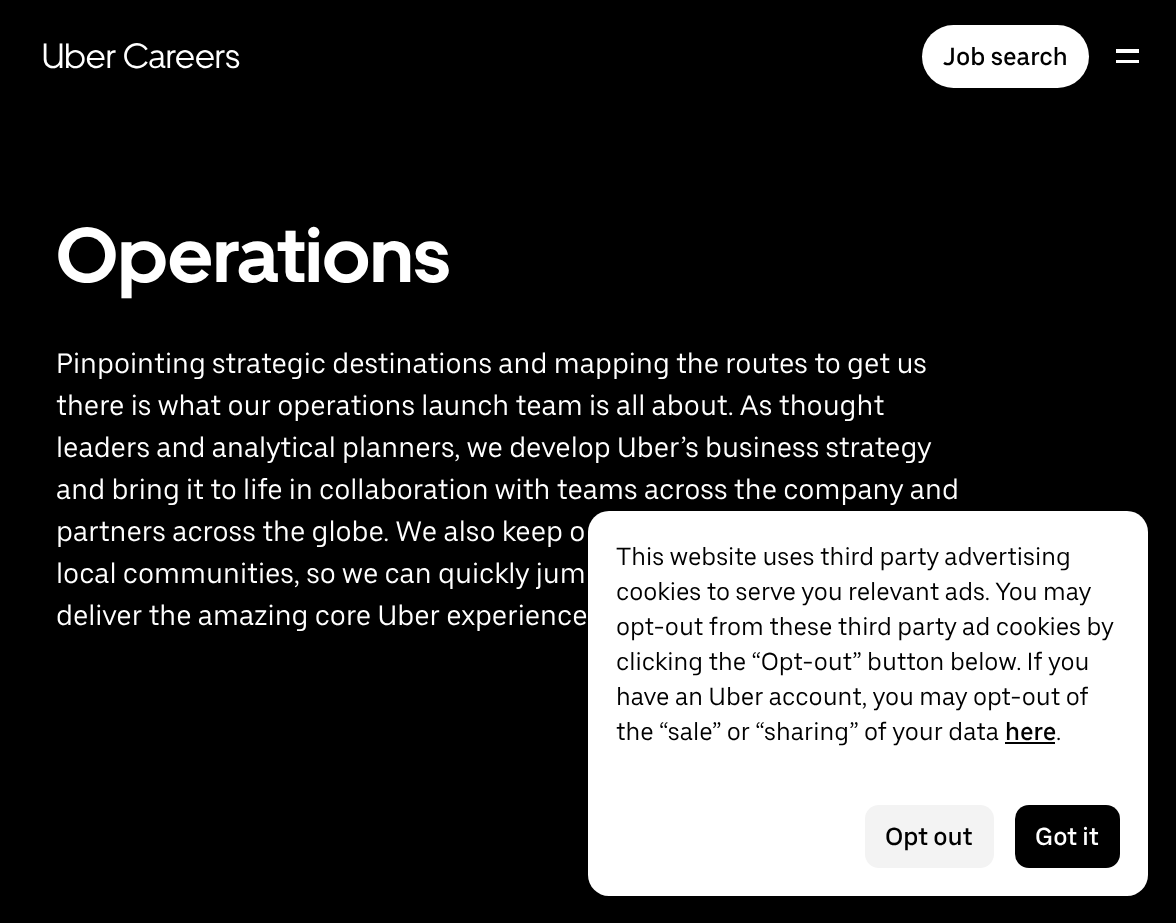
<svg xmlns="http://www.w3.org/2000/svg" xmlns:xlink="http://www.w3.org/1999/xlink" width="1176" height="923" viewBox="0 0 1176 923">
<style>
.cls-1{font:35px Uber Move;fill:#ffffff}
.cls-2{font:500 24.5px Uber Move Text;fill:#000000}
.cls-3{font:bold 77px Uber Move;fill:#ffffff}
.cls-4{font:28px Uber Move Text;fill:#ffffff}
.cls-5{font:24.5px Uber Move Text;fill:#000000}
.cls-6{font:500 24.5px Uber Move Text;fill:#ffffff}
</style>
<rect width="100%" height="100%" fill="#000000"/>
<rect fill="#ffffff" x="922" y="25" width="167" height="63" rx="31.5"/>
<rect fill="#ffffff" x="1116" y="49" width="23" height="4"/>
<rect fill="#ffffff" x="1116" y="60" width="23" height="3"/>
<rect fill="#000000" fill-opacity="0.16" filter="blur(14px)" x="588" y="518" width="560" height="385" rx="21"/>
<rect fill="#ffffff" x="588" y="511" width="560" height="385" rx="21"/>
<rect fill="#000000" x="1005" y="742" width="50" height="2"/>
<rect fill="#f3f3f3" x="865" y="805" width="129" height="63" rx="14"/>
<rect fill="#000000" x="1015" y="805" width="105" height="63" rx="14"/>
<text class="cls-1" x="42" y="68">Uber Careers</text>
<text class="cls-2" x="943" y="65">Job search</text>
<text class="cls-3" x="56" y="282">Operations</text>
<text class="cls-4"><tspan x="56" y="373">Pinpointing strategic destinations and mapping the routes to get us</tspan><tspan x="56" y="415">there is what our operations launch team is all about. As thought</tspan><tspan x="56" y="457">leaders and analytical planners, we develop Uber’s business strategy</tspan><tspan x="56" y="499">and bring it to life in collaboration with teams across the company and</tspan><tspan x="56" y="541">partners across the globe. We also keep o</tspan><tspan x="56" y="583">local communities, so we can quickly jum</tspan><tspan x="56" y="625">deliver the amazing core Uber experience</tspan></text>
<text class="cls-5"><tspan x="616" y="565">This website uses third party advertising</tspan><tspan x="616" y="600">cookies to serve you relevant ads. You may</tspan><tspan x="616" y="635">opt-out from these third party ad cookies by</tspan><tspan x="616" y="670">clicking the “Opt-out” button below. If you</tspan><tspan x="616" y="705">have an Uber account, you may opt-out of</tspan><tspan x="616" y="740">the “sale” or “sharing” of your data</tspan></text>
<text class="cls-2" x="1005" y="740">here</text>
<text class="cls-5" x="1056" y="740">.</text>
<text class="cls-2" x="885" y="845">Opt out</text>
<text class="cls-6" x="1035" y="845">Got it</text>
</svg>
